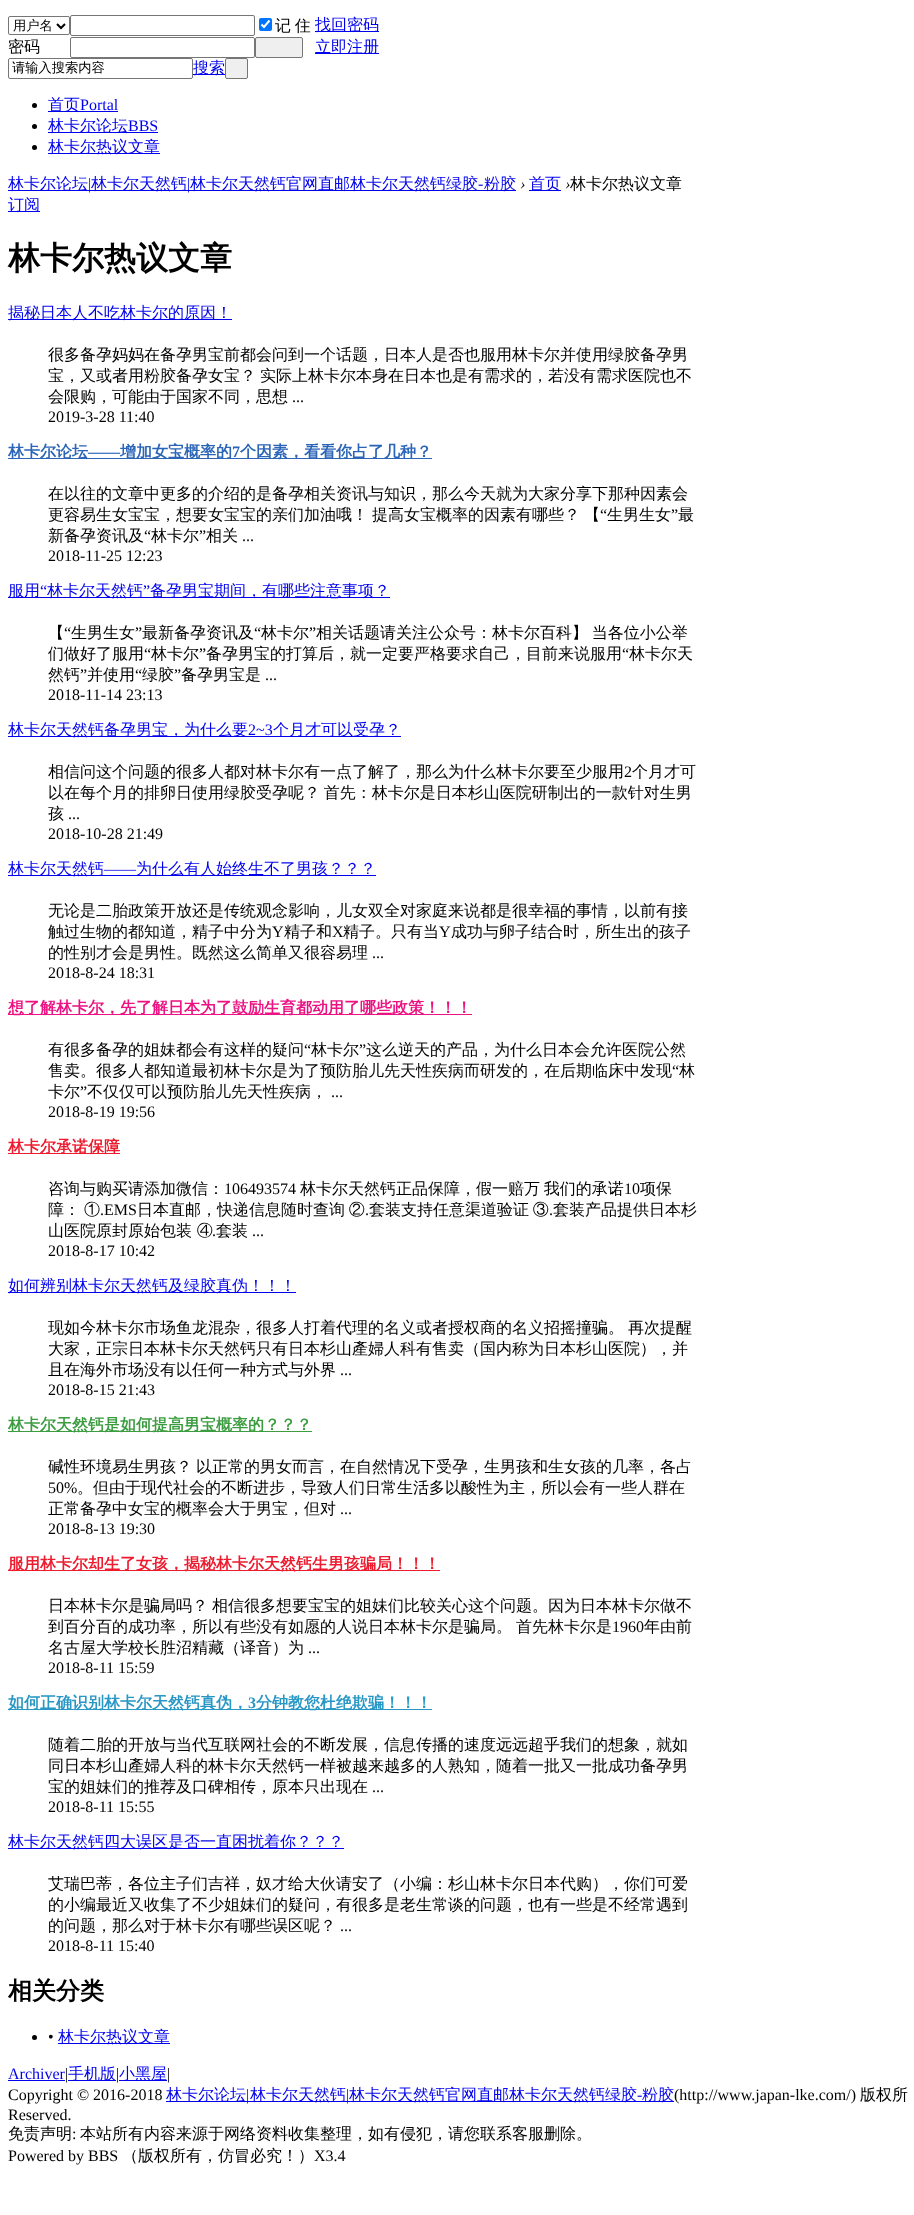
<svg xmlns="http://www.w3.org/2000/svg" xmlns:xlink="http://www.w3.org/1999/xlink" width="914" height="2215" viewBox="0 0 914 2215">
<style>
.cls-1{font:500 13.25px WenQuanYi Zen Hei;fill:#000000}
.cls-2{font:500 16px WenQuanYi Zen Hei;fill:#000000}
.cls-3{font:500 16px WenQuanYi Zen Hei;fill:#0000ee}
.cls-4{font:16px Liberation Serif;fill:#0000ee}
.cls-5{font:italic 16px Liberation Serif;fill:#000000}
.cls-6{font:bold 32px WenQuanYi Zen Hei;fill:#000000}
.cls-7{font:16px Liberation Serif;fill:#000000}
.cls-8{font:bold 16px WenQuanYi Zen Hei;fill:#2b65b7}
.cls-9{font:bold 16px Liberation Serif;fill:#2b65b7}
.cls-10{font:bold 16px WenQuanYi Zen Hei;fill:#ec1282}
.cls-11{font:bold 16px WenQuanYi Zen Hei;fill:#ee1b2e}
.cls-12{font:bold 16px WenQuanYi Zen Hei;fill:#3c9d40}
.cls-13{font:bold 16px WenQuanYi Zen Hei;fill:#2897c5}
.cls-14{font:bold 16px Liberation Serif;fill:#2897c5}
.cls-15{font:bold 24px WenQuanYi Zen Hei;fill:#000000}
</style>
<rect width="100%" height="100%" fill="#ffffff"/>
<rect fill="none" stroke="#767676" x="8.5" y="16.5" width="61" height="18" rx="1.5"/>
<path fill="none" stroke="#000000" stroke-width="2" d="M57 24L61 28L65 24"/>
<rect fill="none" stroke="#767676" x="70.5" y="15.5" width="184" height="20" rx="1.5"/>
<rect fill="#0075ff" x="259" y="18" width="13" height="13" rx="2"/>
<path fill="none" stroke="#ffffff" stroke-width="2.1" d="M261.5 24.5L264 27L269.5 20.5"/>
<rect fill="#0000ee" x="315" y="31" width="64" height="1"/>
<rect fill="none" stroke="#767676" x="70.5" y="37.5" width="184" height="20" rx="1.5"/>
<rect fill="#efefef" stroke="#767676" x="255.5" y="37.5" width="47" height="20" rx="1.5"/>
<rect fill="#0000ee" x="315" y="53" width="64" height="1"/>
<rect fill="none" stroke="#767676" x="8.5" y="58.5" width="184" height="20" rx="1.5"/>
<rect fill="#0000ee" x="193" y="74" width="32" height="1"/>
<rect fill="#efefef" stroke="#767676" x="225.5" y="58.5" width="22" height="20" rx="1.5"/>
<circle fill="#000000" cx="34.5" cy="105.5" r="2.5"/>
<rect fill="#0000ee" x="48" y="111" width="70" height="1"/>
<circle fill="#000000" cx="34.5" cy="126.5" r="2.5"/>
<rect fill="#0000ee" x="48" y="132" width="110" height="1"/>
<circle fill="#000000" cx="34.5" cy="147.5" r="2.5"/>
<rect fill="#0000ee" x="48" y="153" width="112" height="1"/>
<rect fill="#0000ee" x="8" y="190" width="508" height="1"/>
<rect fill="#0000ee" x="529" y="190" width="32" height="1"/>
<rect fill="#0000ee" x="8" y="211" width="32" height="1"/>
<rect fill="#0000ee" x="8" y="319" width="224" height="1"/>
<rect fill="#2b65b7" x="8" y="458" width="424" height="1"/>
<rect fill="#0000ee" x="8" y="597" width="382" height="1"/>
<rect fill="#0000ee" x="8" y="736" width="393" height="1"/>
<rect fill="#0000ee" x="8" y="875" width="368" height="1"/>
<rect fill="#ec1282" x="8" y="1014" width="464" height="1"/>
<rect fill="#ee1b2e" x="8" y="1153" width="112" height="1"/>
<rect fill="#0000ee" x="8" y="1292" width="288" height="1"/>
<rect fill="#3c9d40" x="8" y="1431" width="304" height="1"/>
<rect fill="#ee1b2e" x="8" y="1570" width="432" height="1"/>
<rect fill="#2897c5" x="8" y="1709" width="424" height="1"/>
<rect fill="#0000ee" x="8" y="1848" width="336" height="1"/>
<circle fill="#000000" cx="34.5" cy="2037.5" r="2.5"/>
<rect fill="#0000ee" x="58" y="2043" width="112" height="1"/>
<rect fill="#0000ee" x="8" y="2080" width="57" height="1"/>
<rect fill="#0000ee" x="68" y="2080" width="48" height="1"/>
<rect fill="#0000ee" x="119" y="2080" width="48" height="1"/>
<rect fill="#0000ee" x="166" y="2101" width="508" height="1"/>
<text class="cls-1" x="13" y="30">用户名</text>
<text class="cls-2" x="275" y="31" word-spacing="-1">记 住</text>
<text class="cls-3" x="315" y="30">找回密码</text>
<text class="cls-2" x="8" y="52">密码</text>
<text class="cls-3" x="315" y="52">立即注册</text>
<text class="cls-1" x="12" y="72">请输入搜索内容</text>
<text class="cls-3" x="193" y="73">搜索</text>
<text class="cls-3" x="48" y="110">首页</text>
<text class="cls-4" x="80" y="110">Portal</text>
<text class="cls-3" x="48" y="131">林卡尔论坛</text>
<text class="cls-4" x="128" y="131">BBS</text>
<text class="cls-3" x="48" y="152">林卡尔热议文章</text>
<text class="cls-3" x="8" y="189">林卡尔论坛</text>
<text class="cls-4" x="88" y="189">|</text>
<text class="cls-3" x="91" y="189">林卡尔天然钙</text>
<text class="cls-4" x="187" y="189">|</text>
<text class="cls-3" x="190" y="189">林卡尔天然钙官网直邮林卡尔天然钙绿胶</text>
<text class="cls-4" x="478" y="189">-</text>
<text class="cls-3" x="484" y="189">粉胶</text>
<text class="cls-5" x="520" y="189">›</text>
<text class="cls-3" x="529" y="189">首页</text>
<text class="cls-5" x="565" y="189">›</text>
<text class="cls-2" x="570" y="189">林卡尔热议文章</text>
<text class="cls-3" x="8" y="210">订阅</text>
<text class="cls-6" x="8" y="269">林卡尔热议文章</text>
<text class="cls-3" x="8" y="318">揭秘日本人不吃林卡尔的原因！</text>
<text class="cls-2"><tspan x="48" y="360">很多备孕妈妈在备孕男宝前都会问到一个话题，日本人是否也服用林卡尔并使用绿胶备孕男</tspan><tspan x="48" y="381">宝，又或者用粉胶备孕女宝？</tspan></text>
<text class="cls-2" x="260" y="381">实际上林卡尔本身在日本也是有需求的，若没有需求医院也不</text>
<text class="cls-2" x="48" y="402">会限购，可能由于国家不同，思想</text>
<text class="cls-7" x="292" y="402">...</text>
<text class="cls-7" x="48" y="422">2019-3-28 11:40</text>
<text class="cls-8" x="8" y="457">林卡尔论坛</text>
<text class="cls-9" x="88" y="457">——</text>
<text class="cls-8" x="120" y="457">增加女宝概率的</text>
<text class="cls-9" x="232" y="457">7</text>
<text class="cls-8" x="240" y="457">个因素，看看你占了几种？</text>
<text class="cls-2"><tspan x="48" y="499">在以往的文章中更多的介绍的是备孕相关资讯与知识，那么今天就为大家分享下那种因素会</tspan><tspan x="48" y="520">更容易生女宝宝，想要女宝宝的亲们加油哦！</tspan></text>
<text class="cls-2" x="372" y="520">提高女宝概率的因素有哪些？</text>
<text class="cls-2" x="584" y="520">【</text>
<text class="cls-7" x="600" y="520">“</text>
<text class="cls-2" x="607" y="520">生男生女</text>
<text class="cls-7" x="671" y="520">”</text>
<text class="cls-2" x="678" y="520">最</text>
<text class="cls-2" x="48" y="541">新备孕资讯及</text>
<text class="cls-7" x="144" y="541">“</text>
<text class="cls-2" x="151" y="541">林卡尔</text>
<text class="cls-7" x="199" y="541">”</text>
<text class="cls-2" x="206" y="541">相关</text>
<text class="cls-7" x="242" y="541">...</text>
<text class="cls-7" x="48" y="561">2018-11-25 12:23</text>
<text class="cls-3" x="8" y="596">服用</text>
<text class="cls-4" x="40" y="596">“</text>
<text class="cls-3" x="47" y="596">林卡尔天然钙</text>
<text class="cls-4" x="143" y="596">”</text>
<text class="cls-3" x="150" y="596">备孕男宝期间，有哪些注意事项？</text>
<text class="cls-2" x="48" y="638">【</text>
<text class="cls-7" x="64" y="638">“</text>
<text class="cls-2" x="71" y="638">生男生女</text>
<text class="cls-7" x="135" y="638">”</text>
<text class="cls-2" x="142" y="638">最新备孕资讯及</text>
<text class="cls-7" x="254" y="638">“</text>
<text class="cls-2" x="261" y="638">林卡尔</text>
<text class="cls-7" x="309" y="638">”</text>
<text class="cls-2" x="316" y="638" word-spacing="-1">相关话题请关注公众号：林卡尔百科】 当各位小公举</text>
<text class="cls-2" x="48" y="659">们做好了服用</text>
<text class="cls-7" x="144" y="659">“</text>
<text class="cls-2" x="151" y="659">林卡尔</text>
<text class="cls-7" x="199" y="659">”</text>
<text class="cls-2" x="206" y="659">备孕男宝的打算后，就一定要严格要求自己，目前来说服用</text>
<text class="cls-7" x="622" y="659">“</text>
<text class="cls-2" x="629" y="659">林卡尔天</text>
<text class="cls-2" x="48" y="680">然钙</text>
<text class="cls-7" x="80" y="680">”</text>
<text class="cls-2" x="87" y="680">并使用</text>
<text class="cls-7" x="135" y="680">“</text>
<text class="cls-2" x="142" y="680">绿胶</text>
<text class="cls-7" x="174" y="680">”</text>
<text class="cls-2" x="181" y="680">备孕男宝是</text>
<text class="cls-7" x="265" y="680">...</text>
<text class="cls-7" x="48" y="700">2018-11-14 23:13</text>
<text class="cls-3" x="8" y="735">林卡尔天然钙备孕男宝，为什么要</text>
<text class="cls-4" x="248" y="735">2~3</text>
<text class="cls-3" x="273" y="735">个月才可以受孕？</text>
<text class="cls-2" x="48" y="777">相信问这个问题的很多人都对林卡尔有一点了解了，那么为什么林卡尔要至少服用</text>
<text class="cls-7" x="624" y="777">2</text>
<text class="cls-2" x="632" y="777">个月才可</text>
<text class="cls-2"><tspan x="48" y="798" word-spacing="-1">以在每个月的排卵日使用绿胶受孕呢？ 首先：林卡尔是日本杉山医院研制出的一款针对生男</tspan><tspan x="48" y="819">孩</tspan></text>
<text class="cls-7" x="68" y="819">...</text>
<text class="cls-7" x="48" y="839">2018-10-28 21:49</text>
<text class="cls-3" x="8" y="874">林卡尔天然钙</text>
<text class="cls-4" x="104" y="874">——</text>
<text class="cls-3" x="136" y="874">为什么有人始终生不了男孩？？？</text>
<text class="cls-2"><tspan x="48" y="916">无论是二胎政策开放还是传统观念影响，儿女双全对家庭来说都是很幸福的事情，以前有接</tspan><tspan x="48" y="937">触过生物的都知道，精子中分为</tspan></text>
<text class="cls-7" x="272" y="937">Y</text>
<text class="cls-2" x="284" y="937">精子和</text>
<text class="cls-7" x="332" y="937">X</text>
<text class="cls-2" x="343" y="937">精子。只有当</text>
<text class="cls-7" x="439" y="937">Y</text>
<text class="cls-2" x="451" y="937">成功与卵子结合时，所生出的孩子</text>
<text class="cls-2" x="48" y="958">的性别才会是男性。既然这么简单又很容易理</text>
<text class="cls-7" x="372" y="958">...</text>
<text class="cls-7" x="48" y="978">2018-8-24 18:31</text>
<text class="cls-10" x="8" y="1013">想了解林卡尔，先了解日本为了鼓励生育都动用了哪些政策！！！</text>
<text class="cls-2" x="48" y="1055">有很多备孕的姐妹都会有这样的疑问</text>
<text class="cls-7" x="304" y="1055">“</text>
<text class="cls-2" x="311" y="1055">林卡尔</text>
<text class="cls-7" x="359" y="1055">”</text>
<text class="cls-2" x="366" y="1055">这么逆天的产品，为什么日本会允许医院公然</text>
<text class="cls-2" x="48" y="1076">售卖。很多人都知道最初林卡尔是为了预防胎儿先天性疾病而研发的，在后期临床中发现</text>
<text class="cls-7" x="672" y="1076">“</text>
<text class="cls-2" x="679" y="1076">林</text>
<text class="cls-2" x="48" y="1097">卡尔</text>
<text class="cls-7" x="80" y="1097">”</text>
<text class="cls-2" x="87" y="1097">不仅仅可以预防胎儿先天性疾病，</text>
<text class="cls-7" x="331" y="1097">...</text>
<text class="cls-7" x="48" y="1117">2018-8-19 19:56</text>
<text class="cls-11" x="8" y="1152">林卡尔承诺保障</text>
<text class="cls-2" x="48" y="1194">咨询与购买请添加微信：</text>
<text class="cls-7" x="224" y="1194">106493574</text>
<text class="cls-2" x="300" y="1194" word-spacing="-1">林卡尔天然钙正品保障，假一赔万 我们的承诺</text>
<text class="cls-7" x="624" y="1194">10</text>
<text class="cls-2" x="640" y="1194">项保</text>
<text class="cls-2" x="48" y="1215">障：</text>
<text class="cls-2" x="84" y="1215">①</text>
<text class="cls-7" x="100" y="1215">.EMS</text>
<text class="cls-2" x="137" y="1215" word-spacing="-1">日本直邮，快递信息随时查询 ②</text>
<text class="cls-7" x="365" y="1215">.</text>
<text class="cls-2" x="369" y="1215" word-spacing="-1">套装支持任意渠道验证 ③</text>
<text class="cls-7" x="549" y="1215">.</text>
<text class="cls-2" x="553" y="1215">套装产品提供日本杉</text>
<text class="cls-2" x="48" y="1236">山医院原封原始包装 ④</text>
<text class="cls-7" x="212" y="1236">.</text>
<text class="cls-2" x="216" y="1236">套装</text>
<text class="cls-7" x="252" y="1236">...</text>
<text class="cls-7" x="48" y="1256">2018-8-17 10:42</text>
<text class="cls-3" x="8" y="1291">如何辨别林卡尔天然钙及绿胶真伪！！！</text>
<text class="cls-2" x="48" y="1333">现如今林卡尔市场鱼龙混杂，很多人打着代理的名义或者授权商的名义招摇撞骗。</text>
<text class="cls-2" x="628" y="1333">再次提醒</text>
<text class="cls-2"><tspan x="48" y="1354">大家，正宗日本林卡尔天然钙只有日本杉山產婦人科有售卖（国内称为日本杉山医院），并</tspan><tspan x="48" y="1375">且在海外市场没有以任何一种方式与外界</tspan></text>
<text class="cls-7" x="340" y="1375">...</text>
<text class="cls-7" x="48" y="1395">2018-8-15 21:43</text>
<text class="cls-12" x="8" y="1430">林卡尔天然钙是如何提高男宝概率的？？？</text>
<text class="cls-2" x="48" y="1472">碱性环境易生男孩？</text>
<text class="cls-2" x="196" y="1472">以正常的男女而言，在自然情况下受孕，生男孩和生女孩的几率，各占</text>
<text class="cls-7" x="48" y="1493">50%</text>
<text class="cls-2" x="77" y="1493">。但由于现代社会的不断进步，导致人们日常生活多以酸性为主，所以会有一些人群在</text>
<text class="cls-2" x="48" y="1514">正常备孕中女宝的概率会大于男宝，但对</text>
<text class="cls-7" x="340" y="1514">...</text>
<text class="cls-7" x="48" y="1534">2018-8-13 19:30</text>
<text class="cls-11" x="8" y="1569">服用林卡尔却生了女孩，揭秘林卡尔天然钙生男孩骗局！！！</text>
<text class="cls-2" x="48" y="1611">日本林卡尔是骗局吗？</text>
<text class="cls-2" x="212" y="1611">相信很多想要宝宝的姐妹们比较关心这个问题。因为日本林卡尔做不</text>
<text class="cls-2" x="48" y="1632">到百分百的成功率，所以有些没有如愿的人说日本林卡尔是骗局。</text>
<text class="cls-2" x="516" y="1632">首先林卡尔是</text>
<text class="cls-7" x="612" y="1632">1960</text>
<text class="cls-2" x="644" y="1632">年由前</text>
<text class="cls-2" x="48" y="1653">名古屋大学校长胜沼精藏（译音）为</text>
<text class="cls-7" x="308" y="1653">...</text>
<text class="cls-7" x="48" y="1673">2018-8-11 15:59</text>
<text class="cls-13" x="8" y="1708">如何正确识别林卡尔天然钙真伪，</text>
<text class="cls-14" x="248" y="1708">3</text>
<text class="cls-13" x="256" y="1708">分钟教您杜绝欺骗！！！</text>
<text class="cls-2"><tspan x="48" y="1750">随着二胎的开放与当代互联网社会的不断发展，信息传播的速度远远超乎我们的想象，就如</tspan><tspan x="48" y="1771">同日本杉山產婦人科的林卡尔天然钙一样被越来越多的人熟知，随着一批又一批成功备孕男</tspan><tspan x="48" y="1792">宝的姐妹们的推荐及口碑相传，原本只出现在</tspan></text>
<text class="cls-7" x="372" y="1792">...</text>
<text class="cls-7" x="48" y="1812">2018-8-11 15:55</text>
<text class="cls-3" x="8" y="1847">林卡尔天然钙四大误区是否一直困扰着你？？？</text>
<text class="cls-2"><tspan x="48" y="1889">艾瑞巴蒂，各位主子们吉祥，奴才给大伙请安了（小编：杉山林卡尔日本代购），你们可爱</tspan><tspan x="48" y="1910">的小编最近又收集了不少姐妹们的疑问，有很多是老生常谈的问题，也有一些是不经常遇到</tspan><tspan x="48" y="1931">的问题，那么对于林卡尔有哪些误区呢？</tspan></text>
<text class="cls-7" x="340" y="1931">...</text>
<text class="cls-7" x="48" y="1951">2018-8-11 15:40</text>
<text class="cls-15" x="8" y="1999">相关分类</text>
<text class="cls-7" x="48" y="2042">•</text>
<text class="cls-3" x="58" y="2042">林卡尔热议文章</text>
<text class="cls-4" x="8" y="2079">Archiver</text>
<text class="cls-7" x="65" y="2079">|</text>
<text class="cls-3" x="68" y="2079">手机版</text>
<text class="cls-7" x="116" y="2079">|</text>
<text class="cls-3" x="119" y="2079">小黑屋</text>
<text class="cls-7" x="167" y="2079">|</text>
<text class="cls-7" x="8" y="2100">Copyright © 2016-2018</text>
<text class="cls-3" x="166" y="2100">林卡尔论坛</text>
<text class="cls-4" x="246" y="2100">|</text>
<text class="cls-3" x="250" y="2100">林卡尔天然钙</text>
<text class="cls-4" x="346" y="2100">|</text>
<text class="cls-3" x="349" y="2100">林卡尔天然钙官网直邮林卡尔天然钙绿胶</text>
<text class="cls-4" x="637" y="2100">-</text>
<text class="cls-3" x="642" y="2100">粉胶</text>
<text class="cls-7" x="674" y="2100">(http://www.japan-lke.com/)</text>
<text class="cls-2" x="860" y="2100">版权所</text>
<text class="cls-7" x="8" y="2120">Reserved.</text>
<text class="cls-2" x="8" y="2139">免责声明</text>
<text class="cls-7" x="72" y="2139">:</text>
<text class="cls-2" x="80" y="2139">本站所有内容来源于网络资料收集整理，如有侵犯，请您联系客服删除。</text>
<text class="cls-7" x="8" y="2161">Powered by BBS</text>
<text class="cls-2" x="122" y="2161">（版权所有，仿冒必究！）</text>
<text class="cls-7" x="314" y="2161">X3.4</text>
</svg>
